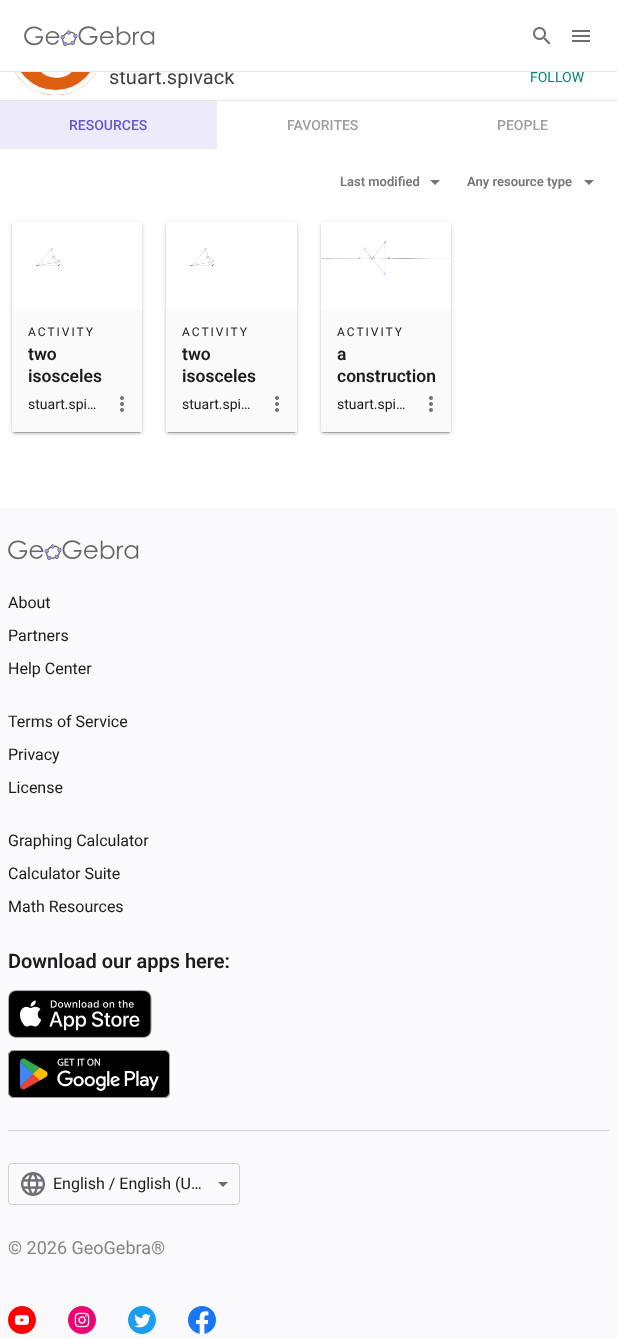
<svg xmlns="http://www.w3.org/2000/svg" xmlns:xlink="http://www.w3.org/1999/xlink" width="617" height="1339" viewBox="0 0 617 1339">
<style>
.cls-1{font:20px Roboto;fill:#424242}
.cls-2{font:14px Roboto;fill:#008475}
.cls-3{font:500 14px Roboto;fill:#6557d2}
.cls-4{font:500 14px Roboto;fill:#9e9e9e}
.cls-5{font:600 13px Roboto;fill:#757575}
.cls-6{font:12px Roboto;letter-spacing:2px;fill:#1c1c1f}
.cls-7{font:600 17.5px Roboto;fill:#1c1c1f}
.cls-8{font:14px Roboto;fill:#1c1c1f}
.cls-9{font:16px Roboto;fill:#1c1c1f}
.cls-10{font:600 20px Roboto;fill:#1c1c1f}
.cls-11{font:18px Roboto;fill:#85848a}
</style>
<defs>
<clipPath id="clip1"><path d="M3 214H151V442H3ZM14 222H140C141 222 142 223 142 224V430C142 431 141 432 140 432H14C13 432 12 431 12 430V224C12 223 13 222 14 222Z" clip-rule="evenodd"/></clipPath>
<clipPath id="clip2"><path d="M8 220H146V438H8ZM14 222H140C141 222 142 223 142 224V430C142 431 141 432 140 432H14C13 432 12 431 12 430V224C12 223 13 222 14 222Z" clip-rule="evenodd"/></clipPath>
<clipPath id="clip3"><rect x="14" y="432" width="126" height="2"/></clipPath>
<clipPath id="clip4"><path d="M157 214H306V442H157ZM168 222H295C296 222 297 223 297 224V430C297 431 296 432 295 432H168C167 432 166 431 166 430V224C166 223 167 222 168 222Z" clip-rule="evenodd"/></clipPath>
<clipPath id="clip5"><path d="M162 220H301V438H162ZM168 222H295C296 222 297 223 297 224V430C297 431 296 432 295 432H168C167 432 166 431 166 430V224C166 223 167 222 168 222Z" clip-rule="evenodd"/></clipPath>
<clipPath id="clip6"><rect x="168" y="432" width="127" height="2"/></clipPath>
<clipPath id="clip7"><path d="M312 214H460V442H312ZM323 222H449C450 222 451 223 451 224V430C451 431 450 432 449 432H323C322 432 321 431 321 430V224C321 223 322 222 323 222Z" clip-rule="evenodd"/></clipPath>
<clipPath id="clip8"><path d="M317 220H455V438H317ZM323 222H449C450 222 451 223 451 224V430C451 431 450 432 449 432H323C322 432 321 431 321 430V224C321 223 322 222 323 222Z" clip-rule="evenodd"/></clipPath>
<clipPath id="clip9"><rect x="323" y="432" width="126" height="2"/></clipPath>
</defs>
<rect width="100%" height="100%" fill="#ffffff"/>
<image xlink:href="image3.png" x="14" y="72" width="83" height="23"/>
<rect fill="none" stroke="#ffffff" stroke-width="5" x="10.5" y="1.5" width="90" height="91" rx="45"/>
<image xlink:href="image0.png" x="24" y="26" width="131" height="20"/>
<image xlink:href="image1.png" x="533" y="27" width="18" height="18"/>
<image xlink:href="image2.png" x="572" y="30" width="18" height="12"/>
<rect fill="#e6e6eb" x="0" y="100" width="617" height="1"/>
<rect fill="#edebfa" x="0" y="101" width="217" height="48"/>
<path fill="#757575" d="M430 180L435 185L440 180Z"/>
<path fill="#757575" d="M584 180L589 185L594 180Z"/>
<g clip-path="url(#clip1)">
<rect fill="#000000" fill-opacity="0.12" filter="blur(2.5px)" x="12" y="223" width="130" height="210" rx="2"/>
</g>
<g clip-path="url(#clip2)">
<rect fill="#000000" fill-opacity="0.14" filter="blur(1px)" x="12" y="224" width="130" height="210" rx="2"/>
</g>
<g clip-path="url(#clip3)">
<rect fill="#000000" fill-opacity="0.2" filter="blur(0.5px)" x="14" y="227" width="126" height="206"/>
</g>
<image xlink:href="image4.png" x="36" y="247" width="24" height="19"/>
<rect fill="#fafafa" x="12" y="309" width="130" height="123"/>
<image xlink:href="image5.png" x="120" y="396" width="4" height="16"/>
<g clip-path="url(#clip4)">
<rect fill="#000000" fill-opacity="0.12" filter="blur(2.5px)" x="166" y="223" width="131" height="210" rx="2"/>
</g>
<g clip-path="url(#clip5)">
<rect fill="#000000" fill-opacity="0.14" filter="blur(1px)" x="166" y="224" width="131" height="210" rx="2"/>
</g>
<g clip-path="url(#clip6)">
<rect fill="#000000" fill-opacity="0.2" filter="blur(0.5px)" x="168" y="227" width="127" height="206"/>
</g>
<image xlink:href="image4.png" x="190" y="247" width="24" height="19"/>
<rect fill="#fafafa" x="166" y="309" width="131" height="123"/>
<image xlink:href="image5.png" x="275" y="396" width="4" height="16"/>
<g clip-path="url(#clip7)">
<rect fill="#000000" fill-opacity="0.12" filter="blur(2.5px)" x="321" y="223" width="130" height="210" rx="2"/>
</g>
<g clip-path="url(#clip8)">
<rect fill="#000000" fill-opacity="0.14" filter="blur(1px)" x="321" y="224" width="130" height="210" rx="2"/>
</g>
<g clip-path="url(#clip9)">
<rect fill="#000000" fill-opacity="0.2" filter="blur(0.5px)" x="323" y="227" width="126" height="206"/>
</g>
<image xlink:href="image6.png" x="321" y="240" width="130" height="35"/>
<rect fill="#fafafa" x="321" y="309" width="130" height="123"/>
<image xlink:href="image5.png" x="429" y="396" width="4" height="16"/>
<rect fill="#fafafc" x="0" y="508" width="617" height="831"/>
<image xlink:href="image7.png" x="8" y="540" width="131" height="20"/>
<image xlink:href="image8.png" x="8" y="990" width="144" height="48"/>
<image xlink:href="image9.png" x="8" y="1050" width="162" height="48"/>
<rect fill="#d1d0d6" x="8" y="1130" width="601" height="1"/>
<rect fill="none" stroke="#d1d0d6" x="8.5" y="1163.5" width="231" height="41" rx="3.5"/>
<image xlink:href="image10.png" x="21" y="1172" width="24" height="24"/>
<path fill="#6e6d73" d="M218 1182L223 1187L228 1182Z"/>
<image xlink:href="image11.png" x="8" y="1306" width="28" height="28"/>
<image xlink:href="image12.png" x="68" y="1306" width="28" height="28"/>
<image xlink:href="image13.png" x="128" y="1306" width="28" height="28"/>
<image xlink:href="image14.png" x="188" y="1306" width="28" height="28"/>
<text class="cls-1" x="109" y="84">stuart.spivack</text>
<rect fill="#ffffff" x="121" y="68" width="107" height="3"/>
<text class="cls-2" x="530" y="82">FOLLOW</text>
<rect fill="#e6e6eb" x="0" y="71" width="617" height="1"/>
<text class="cls-3" x="69" y="130">RESOURCES</text>
<text class="cls-4" x="287" y="130">FAVORITES</text>
<text class="cls-4" x="497" y="130">PEOPLE</text>
<text class="cls-5" x="340" y="186">Last modified</text>
<text class="cls-5" x="467" y="186">Any resource type</text>
<text class="cls-6" x="28" y="336">ACTIVITY</text>
<text class="cls-7"><tspan x="28" y="360">two</tspan><tspan x="28" y="382">isosceles</tspan></text>
<text class="cls-8" x="28" y="409">stuart.spi…</text>
<text class="cls-6" x="182" y="336">ACTIVITY</text>
<text class="cls-7"><tspan x="182" y="360">two</tspan><tspan x="182" y="382">isosceles</tspan></text>
<text class="cls-8" x="182" y="409">stuart.spi…</text>
<text class="cls-6" x="337" y="336">ACTIVITY</text>
<text class="cls-7"><tspan x="337" y="360">a</tspan><tspan x="337" y="382">construction</tspan></text>
<text class="cls-8" x="337" y="409">stuart.spi…</text>
<text class="cls-9" x="8" y="608">About</text>
<text class="cls-9" x="8" y="641">Partners</text>
<text class="cls-9" x="8" y="674">Help Center</text>
<text class="cls-9" x="8" y="727">Terms of Service</text>
<text class="cls-9" x="8" y="760">Privacy</text>
<text class="cls-9" x="8" y="793">License</text>
<text class="cls-9" x="8" y="846">Graphing Calculator</text>
<text class="cls-9" x="8" y="879">Calculator Suite</text>
<text class="cls-9" x="8" y="912">Math Resources</text>
<text class="cls-10" x="8" y="968">Download our apps here:</text>
<text class="cls-9" x="53" y="1189">English / English (U…</text>
<text class="cls-11" x="8" y="1254">© 2026 GeoGebra®</text>
</svg>
